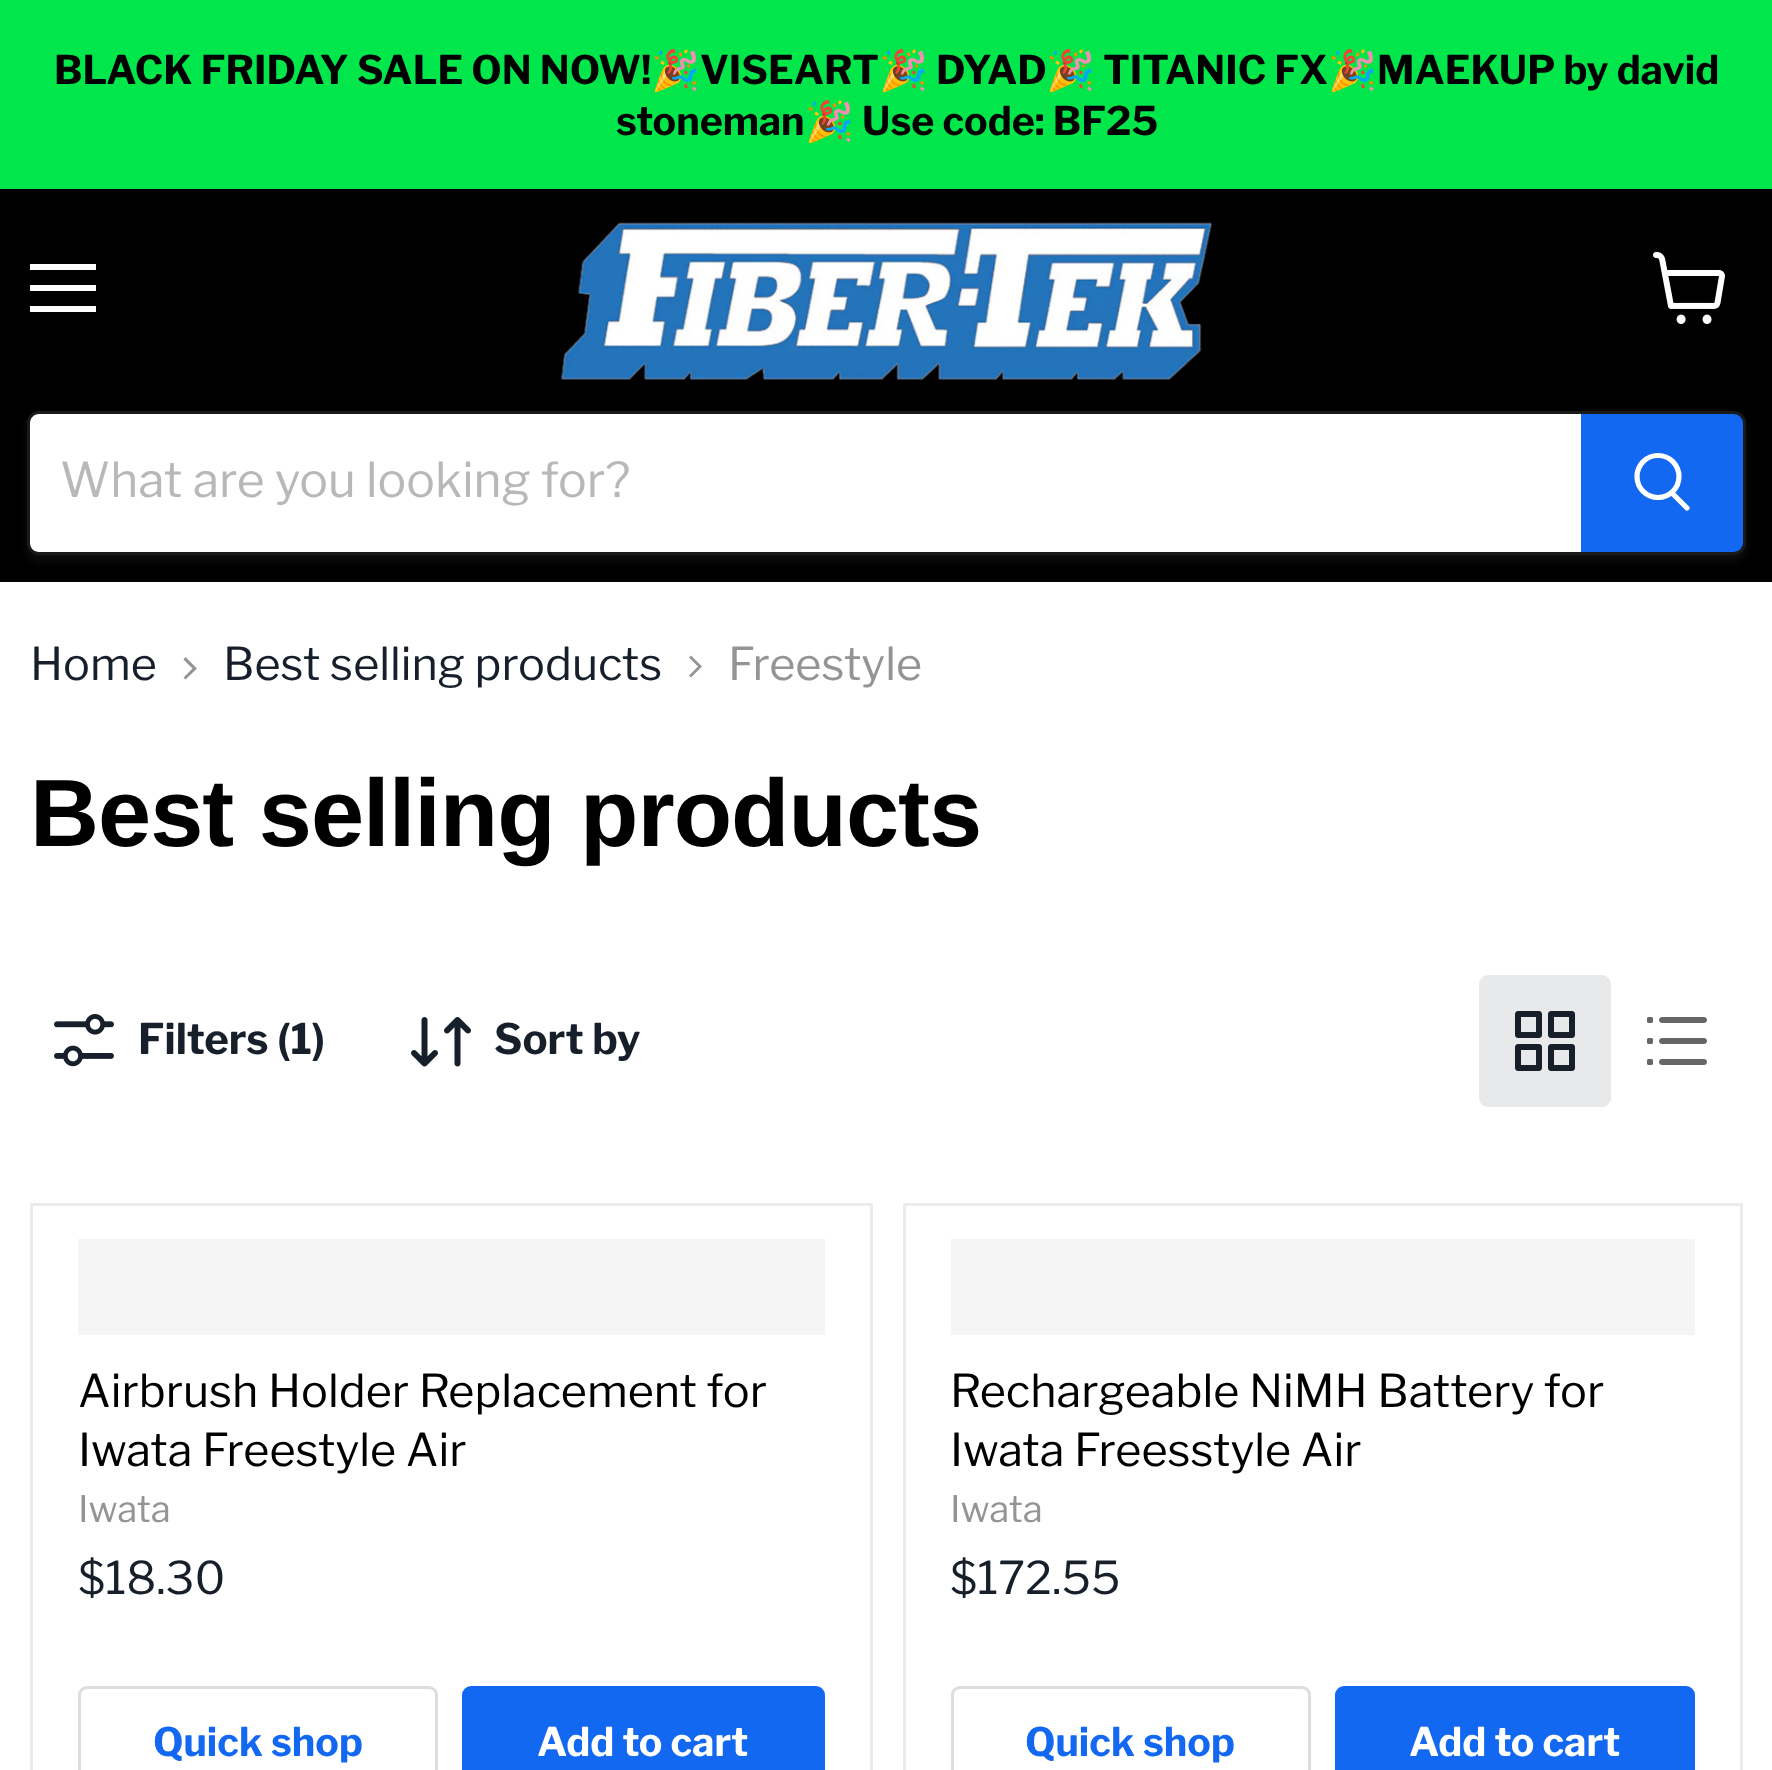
<svg xmlns="http://www.w3.org/2000/svg" xmlns:xlink="http://www.w3.org/1999/xlink" width="1772" height="1770" viewBox="0 0 1772 1770">
<style>
.cls-1{font:bold 39.4px Libre Franklin;fill:#000000}
.cls-2{font:bold 39.4px Noto Color Emoji;fill:#000000}
.cls-3{font:48px Libre Franklin;fill:#b8b8b8}
.cls-4{font:45px Libre Franklin;fill:#171f2b}
.cls-5{font:45px Libre Franklin;fill:#949494}
.cls-6{font:bold 95.6px Arimo;letter-spacing:-1px;fill:#000000}
.cls-7{font:bold 42px Libre Franklin;fill:#171f2b}
.cls-8{font:45px Libre Franklin;fill:#000000}
.cls-9{font:36.5px Libre Franklin;fill:#949494}
.cls-10{font:bold 39.4px Libre Franklin;fill:#1268f1}
.cls-11{font:bold 39.4px Libre Franklin;fill:#ffffff}
</style>
<defs>
<clipPath id="clip1"><path d="M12 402H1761V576H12ZM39 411H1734C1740.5 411 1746 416.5 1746 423V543C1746 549.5 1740.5 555 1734 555H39C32.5 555 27 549.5 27 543V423C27 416.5 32.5 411 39 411Z" clip-rule="evenodd"/></clipPath>
</defs>
<rect width="100%" height="100%" fill="#ffffff"/>
<rect fill="#00e64b" x="0" y="0" width="1772" height="189"/>
<rect fill="#000000" x="0" y="189" width="1772" height="393"/>
<rect fill="#ffffff" x="30" y="264" width="66" height="6"/>
<rect fill="#ffffff" x="30" y="285" width="66" height="6"/>
<rect fill="#ffffff" x="30" y="306" width="66" height="6"/>
<image xlink:href="image0.png" x="1653" y="252" width="72" height="72"/>
<image xlink:href="image1.png" x="561" y="222" width="652" height="159"/>
<g clip-path="url(#clip1)">
<rect fill="#808080" fill-opacity="0.11" filter="blur(4.5px)" x="27" y="417" width="1719" height="144" rx="12"/>
</g>
<rect fill="none" stroke="#808080" stroke-opacity="0.2" stroke-width="3" x="28.5" y="412.5" width="1716" height="141" rx="10.5"/>
<path fill="#ffffff" d="M39 414H1581V552H39C34 552 30 548 30 543V423C30 418 34 414 39 414Z"/>
<path fill="#1268f1" stroke="#1268f1" stroke-width="3" d="M1582.5 415.5H1734C1738 415.5 1741.5 419 1741.5 423V543C1741.5 547 1738 550.5 1734 550.5H1582.5Z"/>
<path fill="none" stroke="#ffffff" stroke-width="5.2" stroke-linecap="round" d="M1687 508L1672.5 493.5"/>
<circle fill="none" stroke="#ffffff" stroke-width="5.2" cx="1658" cy="476.5" r="21"/>
<path fill="#949494" fill-rule="evenodd" d="M183.5 677.5L185.5 679.5L197 668.5L185.5 657L183.5 659.5L192.5 668.5Z"/>
<path fill="#949494" fill-rule="evenodd" d="M689 675.5L691 677.5L702 666.5L691 655.5L689 657.5L698 666.5Z"/>
<image xlink:href="image2.png" x="54" y="1014" width="60" height="53"/>
<image xlink:href="image3.png" x="411" y="1017" width="60" height="50"/>
<rect fill="#e8e9ea" x="1479" y="975" width="132" height="132" rx="9"/>
<image xlink:href="image4.png" x="1515" y="1011" width="60" height="60"/>
<image xlink:href="image5.png" x="1647" y="1017" width="60" height="48"/>
<rect fill="none" stroke="#ebebeb" stroke-width="3" x="31.5" y="1204.5" width="840" height="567"/>
<rect fill="#f5f5f5" x="78" y="1239" width="747" height="96"/>
<rect fill="none" stroke="#dddddd" stroke-width="3" x="79.5" y="1687.5" width="357" height="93" rx="7.5"/>
<rect fill="#1268f1" stroke="#1268f1" stroke-width="3" x="463.5" y="1687.5" width="360" height="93" rx="7.5"/>
<rect fill="none" stroke="#ebebeb" stroke-width="3" x="904.5" y="1204.5" width="837" height="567"/>
<rect fill="#f5f5f5" x="951" y="1239" width="744" height="96"/>
<rect fill="none" stroke="#dddddd" stroke-width="3" x="952.5" y="1687.5" width="357" height="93" rx="7.5"/>
<rect fill="#1268f1" stroke="#1268f1" stroke-width="3" x="1336.5" y="1687.5" width="357" height="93" rx="7.5"/>
<text class="cls-1" x="54" y="84">BLACK FRIDAY SALE ON NOW!</text>
<text class="cls-2" x="651" y="84">🎉</text>
<text class="cls-1" x="700" y="84">VISEART</text>
<text class="cls-2" x="879" y="84">🎉</text>
<text class="cls-1" x="936" y="84">DYAD</text>
<text class="cls-2" x="1046" y="84">🎉</text>
<text class="cls-1" x="1103" y="84">TITANIC FX</text>
<text class="cls-2" x="1328" y="84">🎉</text>
<text class="cls-1" x="1377" y="84">MAEKUP by david</text>
<text class="cls-1" x="616" y="135">stoneman</text>
<text class="cls-2" x="805" y="135">🎉</text>
<text class="cls-1" x="862" y="135">Use code: BF25</text>
<text class="cls-3" x="60" y="497">What are you looking for?</text>
<text class="cls-4" x="30" y="680">Home</text>
<text class="cls-4" x="223" y="680">Best selling products</text>
<text class="cls-5" x="728" y="680">Freestyle</text>
<text class="cls-6" x="30" y="846">Best selling products</text>
<text class="cls-7" x="138" y="1054">Filters (1)</text>
<text class="cls-7" x="494" y="1054">Sort by</text>
<text class="cls-8"><tspan x="78" y="1407">Airbrush Holder Replacement for</tspan><tspan x="78" y="1466">Iwata Freestyle Air</tspan></text>
<text class="cls-9" x="78" y="1522">Iwata</text>
<text class="cls-4" x="78" y="1594">$18.30</text>
<text class="cls-10" x="153" y="1756">Quick shop</text>
<text class="cls-11" x="537" y="1756">Add to cart</text>
<text class="cls-8"><tspan x="950" y="1407">Rechargeable NiMH Battery for</tspan><tspan x="950" y="1466">Iwata Freesstyle Air</tspan></text>
<text class="cls-9" x="950" y="1522">Iwata</text>
<text class="cls-4" x="950" y="1594">$172.55</text>
<text class="cls-10" x="1025" y="1756">Quick shop</text>
<text class="cls-11" x="1409" y="1756">Add to cart</text>
</svg>
